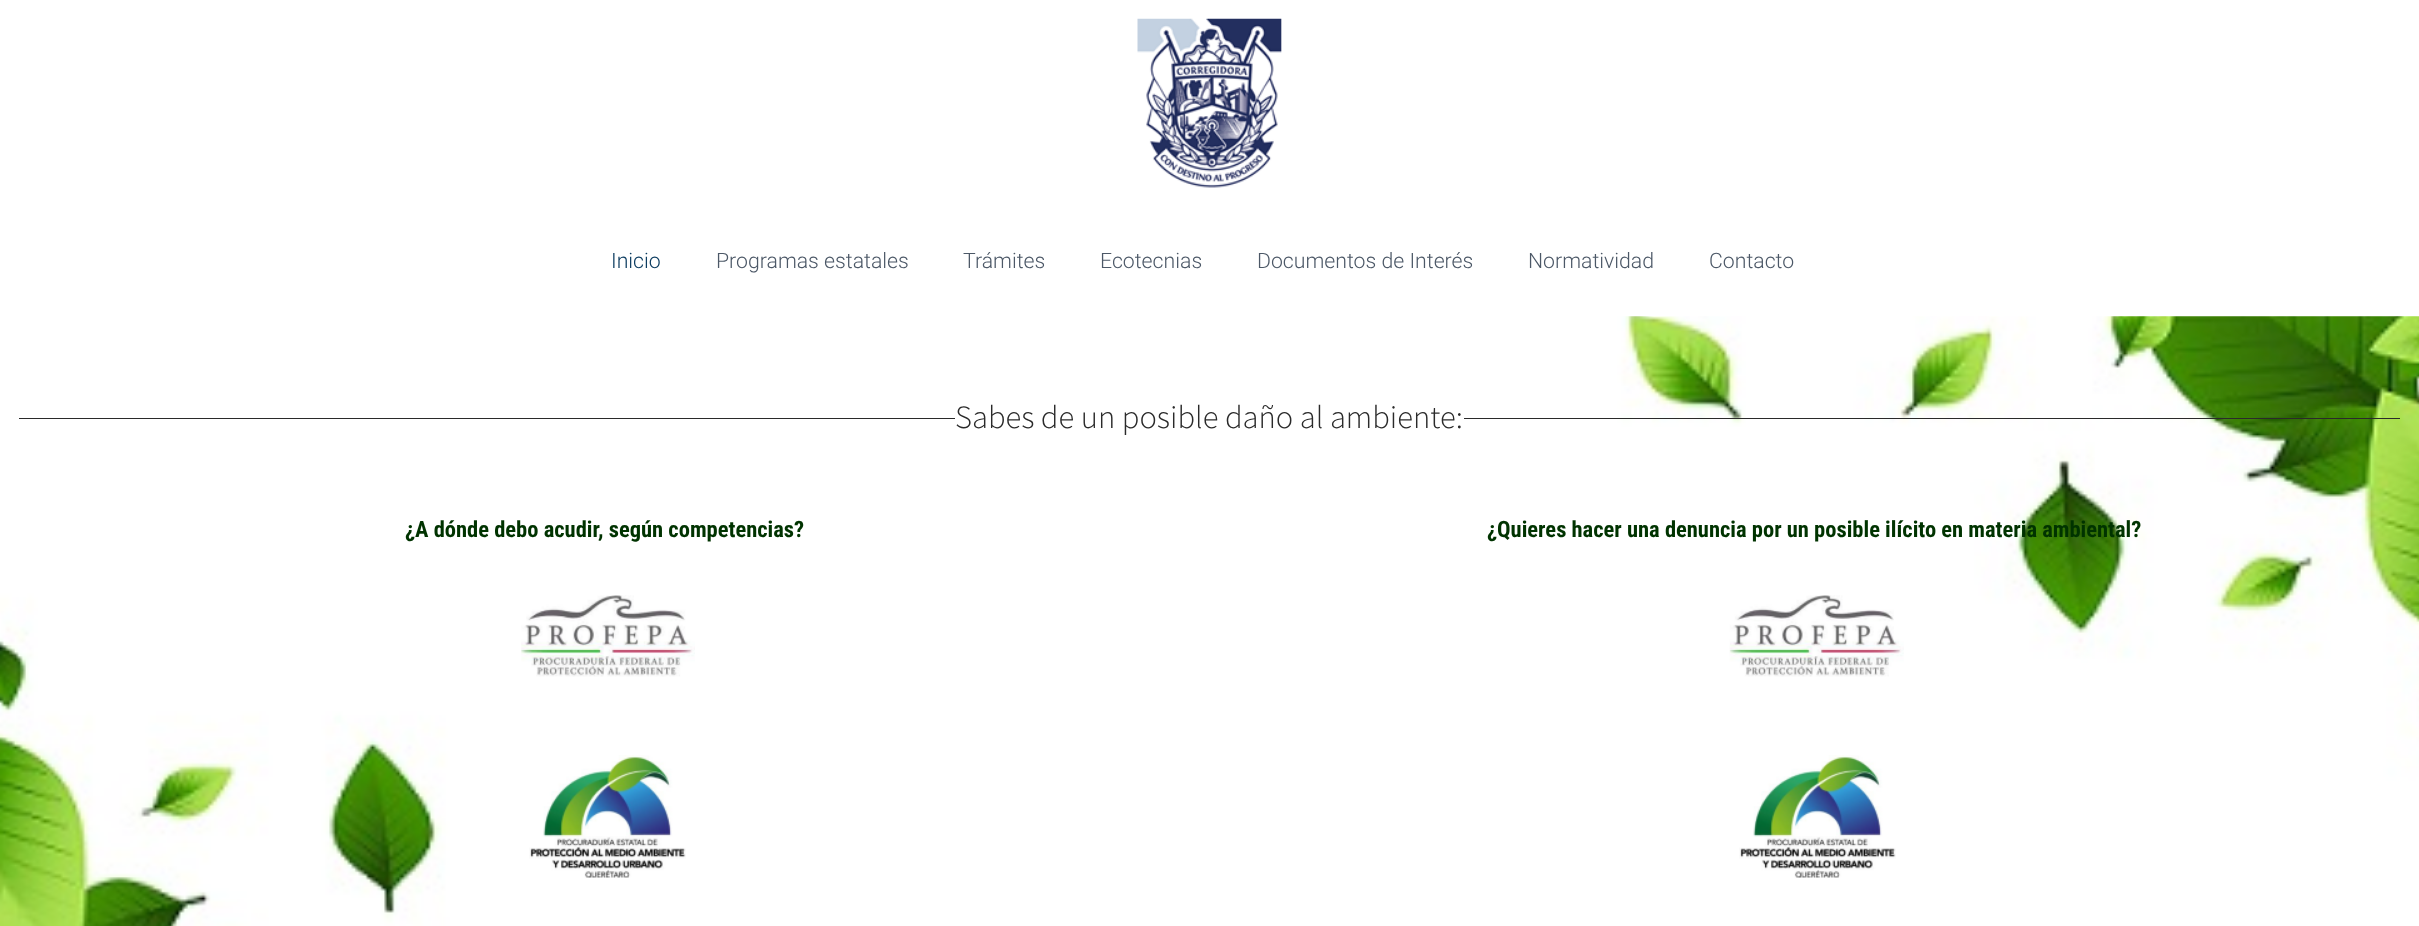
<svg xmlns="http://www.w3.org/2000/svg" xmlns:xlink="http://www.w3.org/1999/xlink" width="2419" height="926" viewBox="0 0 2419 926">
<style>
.cls-1{font:300 21.25px Roboto;fill:#0c3c60}
.cls-2{font:300 21.25px Roboto;fill:#4c5867}
.cls-3{font:300 32.5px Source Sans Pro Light;fill:#2a2a2a}
.cls-4{font:bold 22.5px Roboto Condensed;fill:#003300}
</style>
<rect width="100%" height="100%" fill="#ffffff"/>
<image xlink:href="image0.png" x="1137" y="18" width="145" height="170"/>
<image xlink:href="image1.png" x="0" y="316" width="2419" height="610"/>
<rect fill="#2a2a2a" x="19" y="418" width="936" height="1"/>
<rect fill="#2a2a2a" x="1464" y="418" width="936" height="1"/>
<image xlink:href="image2.png" x="521" y="595" width="174" height="82"/>
<image xlink:href="image3.png" x="529" y="755" width="157" height="123"/>
<image xlink:href="image4.png" x="1729" y="595" width="175" height="82"/>
<image xlink:href="image3.png" x="1739" y="755" width="157" height="123"/>
<text class="cls-1" x="611" y="268">Inicio</text>
<text class="cls-2" x="716" y="268">Programas estatales</text>
<text class="cls-2" x="963" y="268">Trámites</text>
<text class="cls-2" x="1100" y="268">Ecotecnias</text>
<text class="cls-2" x="1257" y="268">Documentos de Interés</text>
<text class="cls-2" x="1528" y="268">Normatividad</text>
<text class="cls-2" x="1709" y="268">Contacto</text>
<text class="cls-3" x="955" y="428">Sabes de un posible daño al ambiente:</text>
<text class="cls-4" x="405" y="537">¿A dónde debo acudir, según competencias?</text>
<text class="cls-4" x="1487" y="537">¿Quieres hacer una denuncia por un posible ilícito en materia ambiental?</text>
</svg>
